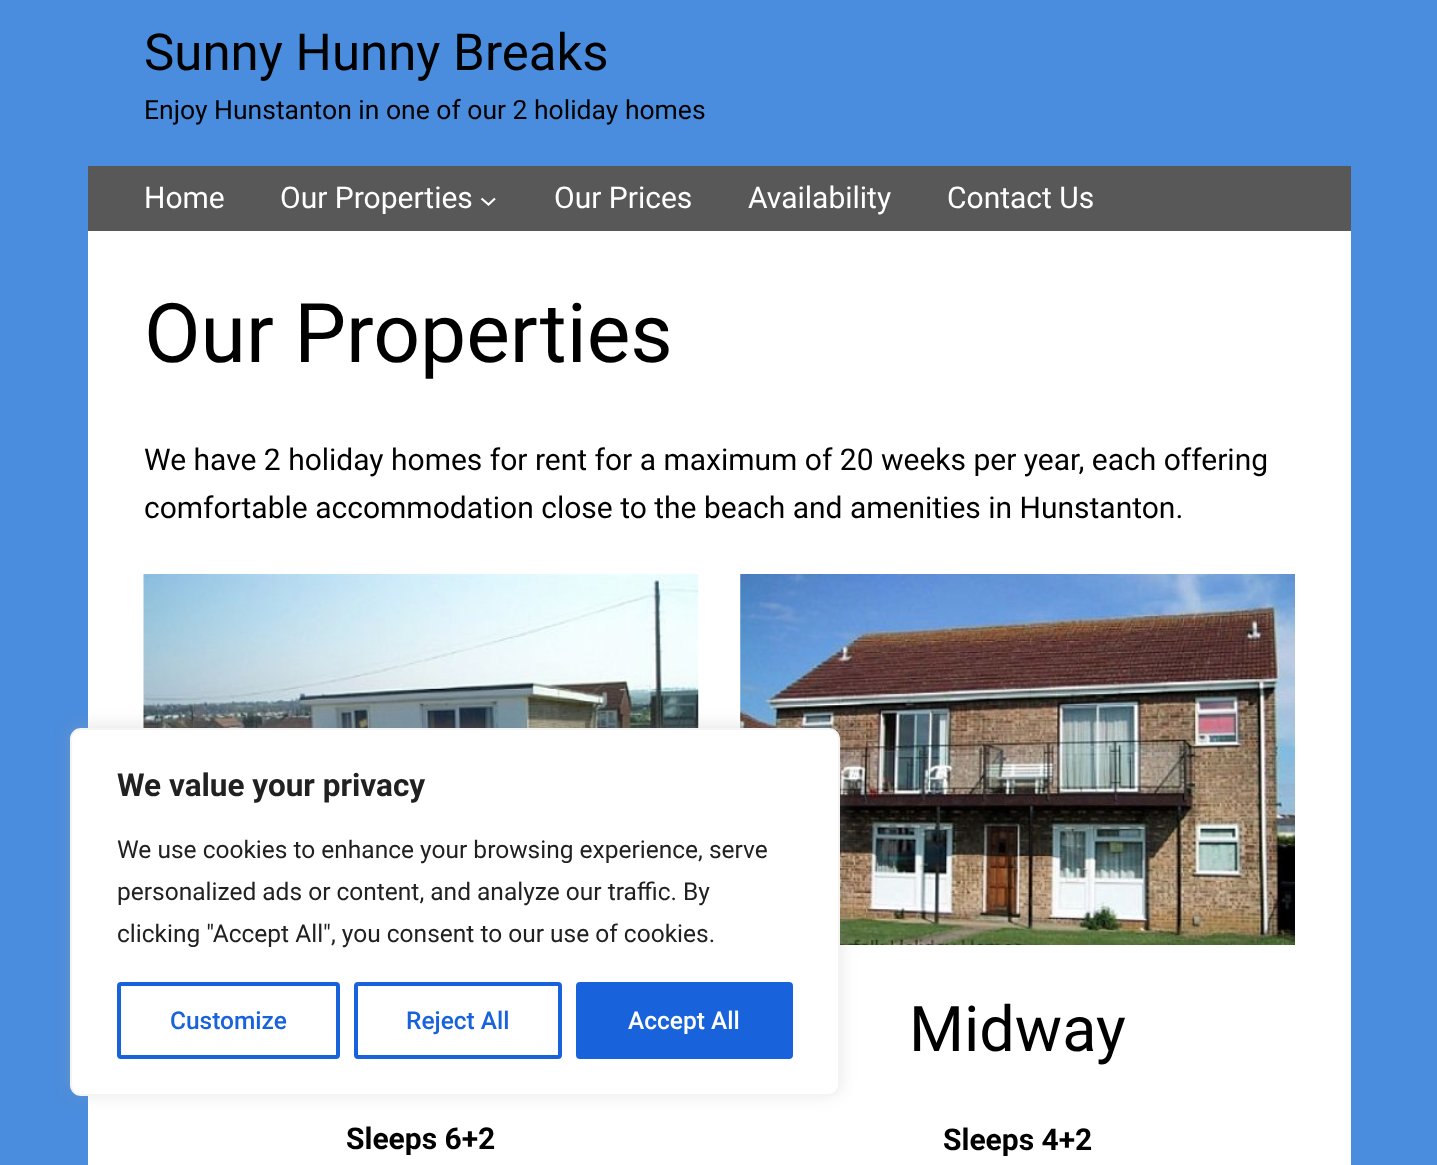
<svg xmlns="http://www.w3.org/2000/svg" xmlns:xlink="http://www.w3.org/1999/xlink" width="1437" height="1165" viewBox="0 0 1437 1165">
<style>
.cls-1{font:51px Roboto;fill:#000000}
.cls-2{font:26.5px Roboto;fill:#000000}
.cls-3{font:30px Roboto;fill:#ffffff}
.cls-4{font:82.25px Roboto;fill:#000000}
.cls-5{font:30px Roboto;fill:#000000}
.cls-6{font:bold 30px Roboto;fill:#000000}
.cls-7{font:63px Roboto;fill:#000000}
.cls-8{font:bold 31.5px Roboto;fill:#212121}
.cls-9{font:24.5px Roboto;fill:#212121}
.cls-10{font:500 24.5px Roboto;fill:#1863dc}
.cls-11{font:500 24.5px Roboto;fill:#ffffff}
</style>
<rect width="100%" height="100%" fill="#4a8cdd"/>
<rect fill="#585858" x="88" y="166" width="1263" height="65"/>
<path fill="none" stroke="#ffffff" stroke-width="2.2" d="M481.5 198.5L488.5 204.5L495 198.5"/>
<rect fill="#ffffff" x="88" y="231" width="1263" height="934"/>
<image xlink:href="image0.png" x="143" y="574" width="556" height="154"/>
<image xlink:href="image1.png" x="740" y="574" width="555" height="371"/>
<rect fill="#acabab" fill-opacity="0.3" filter="blur(9px)" x="70" y="726" width="770" height="368" rx="11"/>
<rect fill="#ffffff" stroke="#f4f4f4" stroke-width="2" x="71" y="729" width="768" height="366" rx="10"/>
<rect fill="none" stroke="#1863dc" stroke-width="4" x="119" y="984" width="219" height="73" rx="2"/>
<rect fill="none" stroke="#1863dc" stroke-width="4" x="356" y="984" width="204" height="73" rx="2"/>
<rect fill="#1863dc" stroke="#1863dc" stroke-width="4" x="578" y="984" width="213" height="73" rx="2"/>
<text class="cls-1" x="144" y="70">Sunny Hunny Breaks</text>
<text class="cls-2" x="144" y="119">Enjoy Hunstanton in one of our 2 holiday homes</text>
<text class="cls-3" x="144" y="208">Home</text>
<text class="cls-3" x="280" y="208">Our Properties</text>
<text class="cls-3" x="554" y="208">Our Prices</text>
<text class="cls-3" x="748" y="208">Availability</text>
<text class="cls-3" x="947" y="208">Contact Us</text>
<text class="cls-4" x="144" y="362">Our Properties</text>
<text class="cls-5"><tspan x="144" y="470">We have 2 holiday homes for rent for a maximum of 20 weeks per year, each offering</tspan><tspan x="144" y="518">comfortable accommodation close to the beach and amenities in Hunstanton.</tspan></text>
<text class="cls-6" x="346" y="1149">Sleeps 6+2</text>
<text class="cls-7" x="909" y="1051">Midway</text>
<text class="cls-6" x="943" y="1150">Sleeps 4+2</text>
<text class="cls-8" x="117" y="796">We value your privacy</text>
<text class="cls-9"><tspan x="117" y="858">We use cookies to enhance your browsing experience, serve</tspan><tspan x="117" y="900">personalized ads or content, and analyze our traffic. By</tspan><tspan x="117" y="942">clicking "Accept All", you consent to our use of cookies.</tspan></text>
<text class="cls-10" x="170" y="1029">Customize</text>
<text class="cls-10" x="406" y="1029">Reject All</text>
<text class="cls-11" x="628" y="1029">Accept All</text>
</svg>
